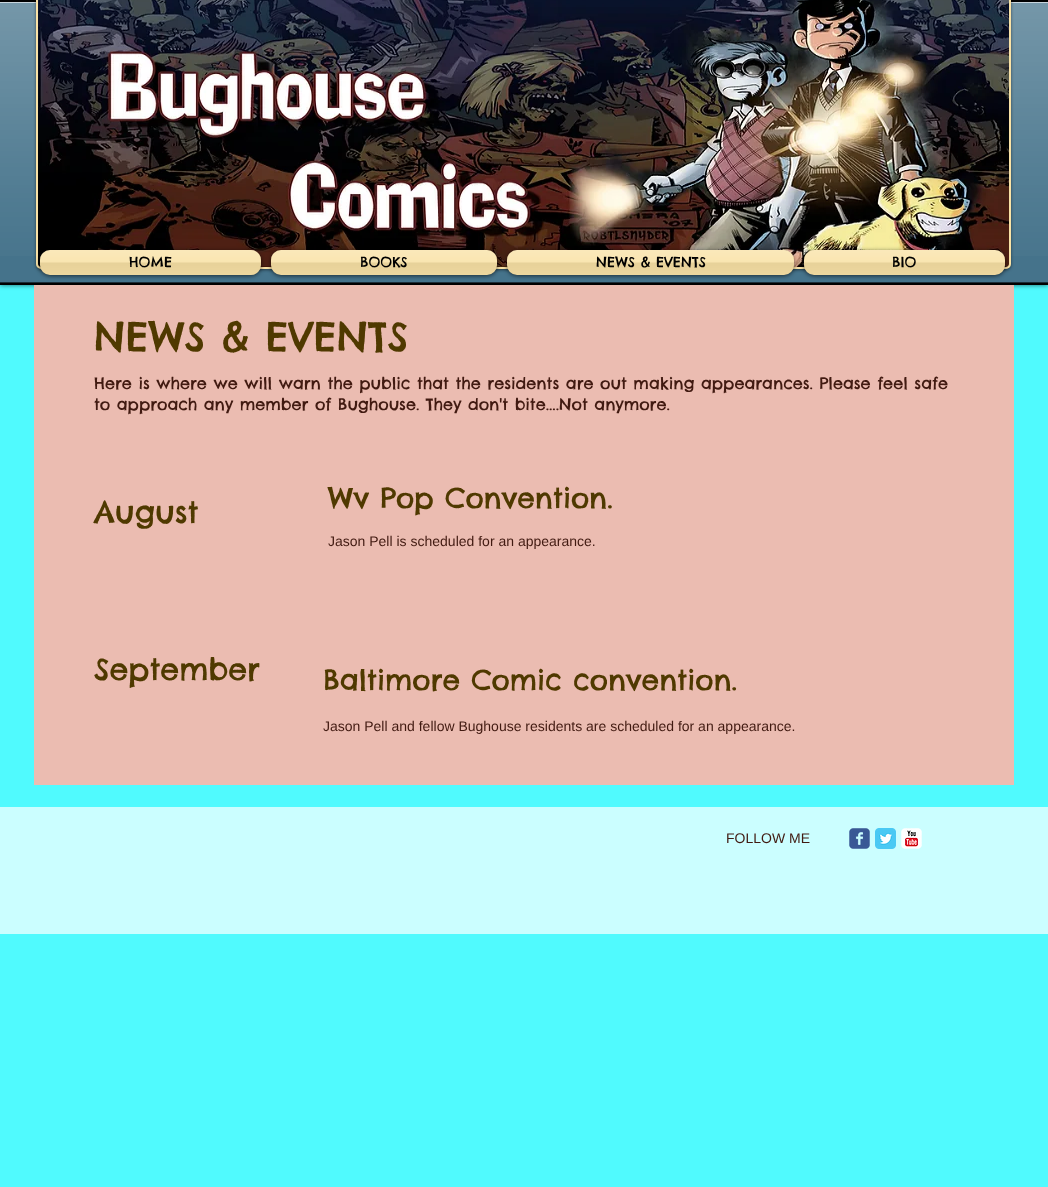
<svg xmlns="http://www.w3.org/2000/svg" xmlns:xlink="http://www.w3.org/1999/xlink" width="1048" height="1187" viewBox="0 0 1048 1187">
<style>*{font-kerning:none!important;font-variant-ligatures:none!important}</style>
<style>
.cls-1{font:14px Chelsea Market;fill:#000000}
.cls-2{font:40px Chelsea Market;fill:#4f3900}
.cls-3{font:16px Chelsea Market;fill:#411a11}
.cls-4{font:30px Chelsea Market;fill:#4f3900}
.cls-5{font:28px Chelsea Market;fill:#4f3900}
.cls-6{font:14px Liberation Sans;fill:#411a11}
</style>
<rect width="100%" height="100%" fill="#50fafe"/>
<rect fill="#000000" fill-opacity="0.6" filter="blur(2.5px)" x="0" y="0" width="1048" height="285"/>
<rect fill="#45738b" x="0" y="3" width="1048" height="279"/>
<image xlink:href="image0.png" x="0" y="3" width="1048" height="253"/>
<rect fill="#1c2e38" x="0" y="282" width="1048" height="1"/>
<rect fill="#c8d5dd" x="0" y="2" width="1048" height="1"/>
<rect fill="#000000" x="0" y="0" width="1048" height="2"/>
<rect fill="#000000" x="0" y="283" width="1048" height="2"/>
<rect fill="#000000" fill-opacity="0.5" filter="blur(1.5px)" x="36" y="-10" width="975" height="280" rx="5"/>
<rect fill="#f9e2a6" stroke="#f9e2a6" stroke-width="2" x="37" y="-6" width="973" height="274" rx="4"/>
<image xlink:href="image1.png" x="38" y="0" width="971" height="267"/>
<rect fill="#000000" fill-opacity="0.6" filter="blur(2px)" x="40" y="251" width="221" height="25" rx="10"/>
<rect fill="#f9e2a6" x="40" y="250" width="221" height="25" rx="10"/>
<image xlink:href="image2.png" x="40" y="250" width="221" height="25"/>
<rect fill="#000000" fill-opacity="0.6" filter="blur(2px)" x="271" y="251" width="226" height="25" rx="10"/>
<rect fill="#f9e2a6" x="271" y="250" width="226" height="25" rx="10"/>
<image xlink:href="image3.png" x="271" y="250" width="226" height="25"/>
<rect fill="#000000" fill-opacity="0.6" filter="blur(2px)" x="507" y="251" width="287" height="25" rx="10"/>
<rect fill="#f9e2a6" x="507" y="250" width="287" height="25" rx="10"/>
<image xlink:href="image4.png" x="507" y="250" width="287" height="25"/>
<rect fill="#000000" fill-opacity="0.6" filter="blur(2px)" x="804" y="251" width="201" height="25" rx="10"/>
<rect fill="#f9e2a6" x="804" y="250" width="201" height="25" rx="10"/>
<image xlink:href="image5.png" x="804" y="250" width="201" height="25"/>
<rect fill="#ebbcb1" x="34" y="285" width="980" height="500"/>
<rect fill="#cbfeff" x="0" y="807" width="1048" height="127"/>
<image xlink:href="image6.png" x="849" y="828" width="21" height="21"/>
<image xlink:href="image7.png" x="875" y="828" width="21" height="21"/>
<image xlink:href="image8.png" x="901" y="828" width="21" height="21"/>
<text class="cls-1" x="129" y="267">HOME</text>
<text class="cls-1" x="360" y="267">BOOKS</text>
<text class="cls-1" x="596" y="267">NEWS &amp; EVENTS</text>
<text class="cls-1" x="892" y="267">BIO</text>
<text class="cls-2" x="94" y="351">NEWS &amp; EVENTS</text>
<text class="cls-3"><tspan x="94" y="389">Here is where we will warn the public that the residents are out making appearances. Please feel safe</tspan><tspan x="94" y="410">to approach any member of Bughouse. They don't bite....Not anymore.</tspan></text>
<text class="cls-4" x="94" y="523">August</text>
<text class="cls-5" x="328" y="508">Wv Pop Convention.</text>
<text class="cls-6" x="328" y="546">Jason Pell is scheduled for an appearance.</text>
<text class="cls-4" x="94" y="680">September</text>
<text class="cls-5" x="323" y="690">Baltimore Comic convention.</text>
<text class="cls-6" x="323" y="731">Jason Pell and fellow Bughouse residents are scheduled for an appearance.</text>
<text class="cls-6" x="726" y="843">FOLLOW ME</text>
</svg>
